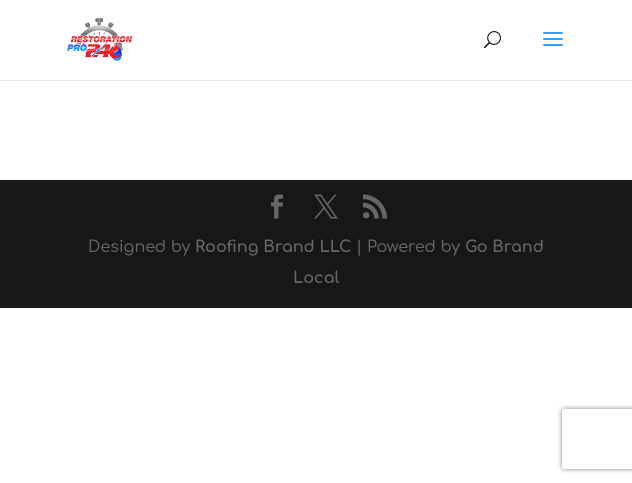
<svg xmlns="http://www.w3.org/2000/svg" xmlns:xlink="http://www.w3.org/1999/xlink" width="632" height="483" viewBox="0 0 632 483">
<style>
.cls-1{font:500 16px Comfortaa;fill:#666666}
.cls-2{font:bold 16px Comfortaa;fill:#666666}
</style>
<defs>
<clipPath id="clip1"><path d="M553 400H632V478H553ZM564 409H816C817 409 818 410 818 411V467C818 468 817 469 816 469H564C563 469 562 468 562 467V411C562 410 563 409 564 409Z" clip-rule="evenodd"/></clipPath>
</defs>
<rect width="100%" height="100%" fill="#ffffff"/>
<rect fill="#e6e6e6" x="0" y="80" width="632" height="1"/>
<image xlink:href="image0.png" x="67" y="18" width="66" height="43"/>
<image xlink:href="image1.png" x="484" y="31" width="17" height="18"/>
<image xlink:href="image2.png" x="543" y="32" width="20" height="14"/>
<rect fill="#171717" x="0" y="180" width="632" height="128"/>
<image xlink:href="image3.png" x="271" y="194" width="12" height="25"/>
<image xlink:href="image4.png" x="314" y="194" width="24" height="25"/>
<image xlink:href="image5.png" x="363" y="194" width="24" height="25"/>
<g clip-path="url(#clip1)">
<rect fill="#808080" filter="blur(2.5px)" x="562" y="409" width="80" height="60" rx="2"/>
</g>
<text class="cls-1" x="88" y="252">Designed by</text>
<text class="cls-2" x="195" y="252">Roofing Brand LLC</text>
<text class="cls-1" x="356" y="252">| Powered by</text>
<text class="cls-2" x="465" y="252">Go Brand</text>
<text class="cls-2" x="293" y="283">Local</text>
</svg>
